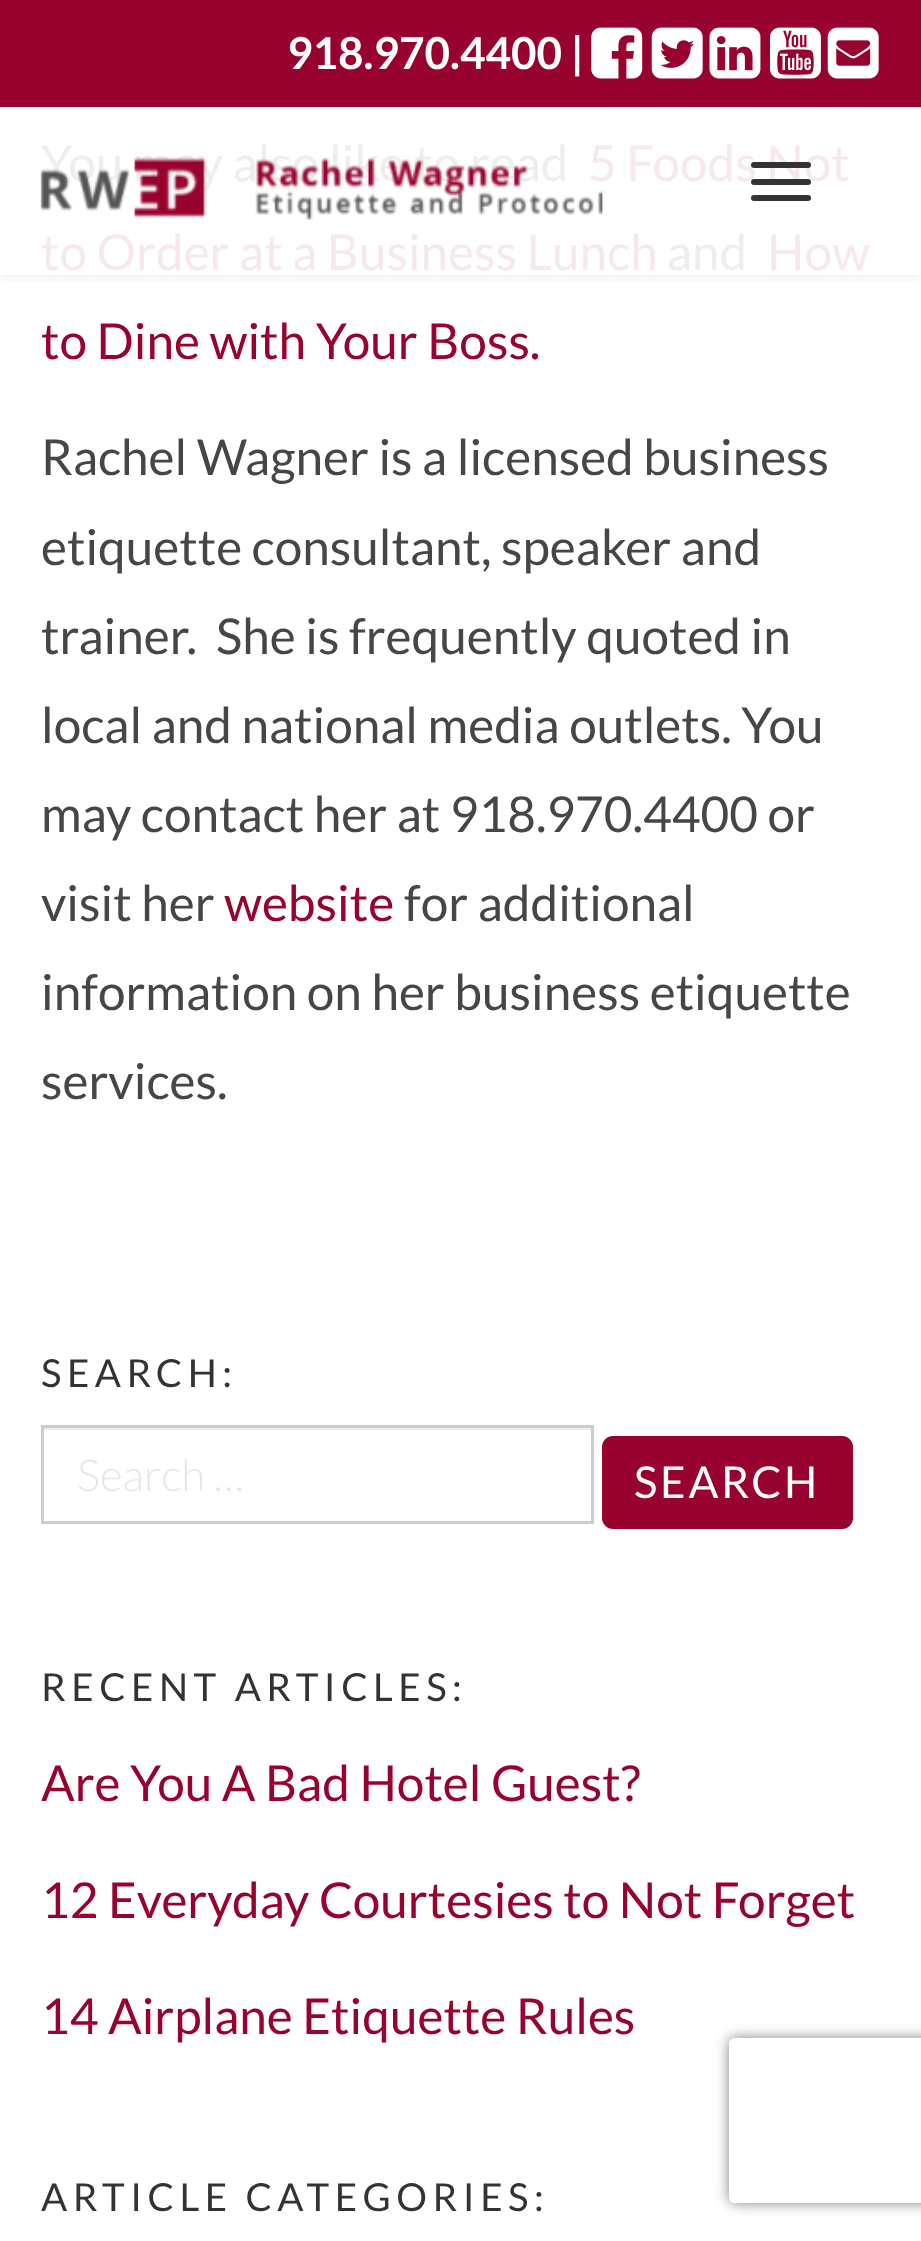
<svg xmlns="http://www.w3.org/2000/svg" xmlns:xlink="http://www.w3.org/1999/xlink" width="921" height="2241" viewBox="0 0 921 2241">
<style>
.cls-1{font:bold 44px Lato;fill:#ffffff}
.cls-2{font:49.5px Lato;fill:#eeeeee}
.cls-3{font:49.5px Lato;fill:#f6e8ec}
.cls-4{font:49.5px Lato;fill:#98022f}
.cls-5{font:49.5px Lato;fill:#464646}
.cls-6{font:38.5px Lato;letter-spacing:5.5px;fill:#333333}
.cls-7{font:300 44px Lato;fill:#e7e7e7}
.cls-8{font:44px Lato;letter-spacing:2.75px;fill:#ffffff}
</style>
<defs>
<clipPath id="clip1"><rect x="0" y="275" width="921" height="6"/></clipPath>
<clipPath id="clip2"><path d="M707 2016H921V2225H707ZM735 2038H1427C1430.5 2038 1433 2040.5 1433 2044V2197C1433 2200.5 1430.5 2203 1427 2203H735C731.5 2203 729 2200.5 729 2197V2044C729 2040.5 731.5 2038 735 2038Z" clip-rule="evenodd"/></clipPath>
</defs>
<rect width="100%" height="100%" fill="#ffffff"/>
<g clip-path="url(#clip1)">
<rect fill="#000000" fill-opacity="0.1" filter="blur(7px)" x="0" y="0" width="921" height="275"/>
</g>
<rect fill="#98022f" x="0" y="0" width="921" height="107"/>
<image xlink:href="image0.png" x="591" y="27" width="52" height="52"/>
<image xlink:href="image1.png" x="651" y="27" width="52" height="52"/>
<image xlink:href="image2.png" x="709" y="27" width="52" height="52"/>
<image xlink:href="image3.png" x="770" y="27" width="51" height="52"/>
<image xlink:href="image4.png" x="827" y="27" width="52" height="52"/>
<rect fill="#333333" x="751" y="195" width="60" height="6" rx="3"/>
<rect fill="#ececec" x="44" y="1428" width="547" height="2"/>
<rect fill="none" stroke="#cccccc" stroke-width="3" x="42.5" y="1426.5" width="550" height="96"/>
<rect fill="#98022f" x="602" y="1436" width="251" height="93" rx="11"/>
<g clip-path="url(#clip2)">
<rect fill="#808080" filter="blur(7px)" x="729" y="2038" width="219" height="165" rx="6"/>
</g>
<text class="cls-1" x="287" y="69">918.970.4400 |</text>
<text class="cls-2" x="41" y="181">You may also like to read</text>
<text class="cls-3" x="588" y="181">5 Foods Not</text>
<rect fill="#333333" x="751" y="179" width="60" height="6" rx="3"/>
<rect fill="#333333" x="751" y="162" width="60" height="6" rx="3"/>
<image xlink:href="image5.png" x="40" y="157" width="564" height="63"/>
<text class="cls-3" x="41" y="270">to Order at a Business Lunch</text>
<text class="cls-2" x="667" y="270">and</text>
<text class="cls-3" x="767" y="270">How</text>
<text class="cls-4" x="41" y="359">to Dine with Your Boss.</text>
<text class="cls-5"><tspan x="41" y="475">Rachel Wagner is a licensed business</tspan><tspan x="41" y="565">etiquette consultant, speaker and</tspan><tspan x="41" y="654">trainer.</tspan></text>
<text class="cls-5" x="216" y="654">She is frequently quoted in</text>
<text class="cls-5"><tspan x="41" y="743">local and national media outlets. You</tspan><tspan x="41" y="832">may contact her at 918.970.4400 or</tspan><tspan x="41" y="921">visit her</tspan></text>
<text class="cls-4" x="224" y="921">website</text>
<text class="cls-5" x="404" y="921">for additional</text>
<text class="cls-5"><tspan x="41" y="1010">information on her business etiquette</tspan><tspan x="41" y="1099">services.</tspan></text>
<text class="cls-6" x="41" y="1387">SEARCH:</text>
<text class="cls-7" x="77" y="1491">Search …</text>
<text class="cls-8" x="634" y="1498">SEARCH</text>
<text class="cls-6" x="41" y="1701">RECENT ARTICLES:</text>
<text class="cls-4" x="41" y="1801">Are You A Bad Hotel Guest?</text>
<text class="cls-4" x="41" y="1918">12 Everyday Courtesies to Not Forget</text>
<text class="cls-4" x="41" y="2034">14 Airplane Etiquette Rules</text>
<text class="cls-6" x="41" y="2211">ARTICLE CATEGORIES:</text>
</svg>
